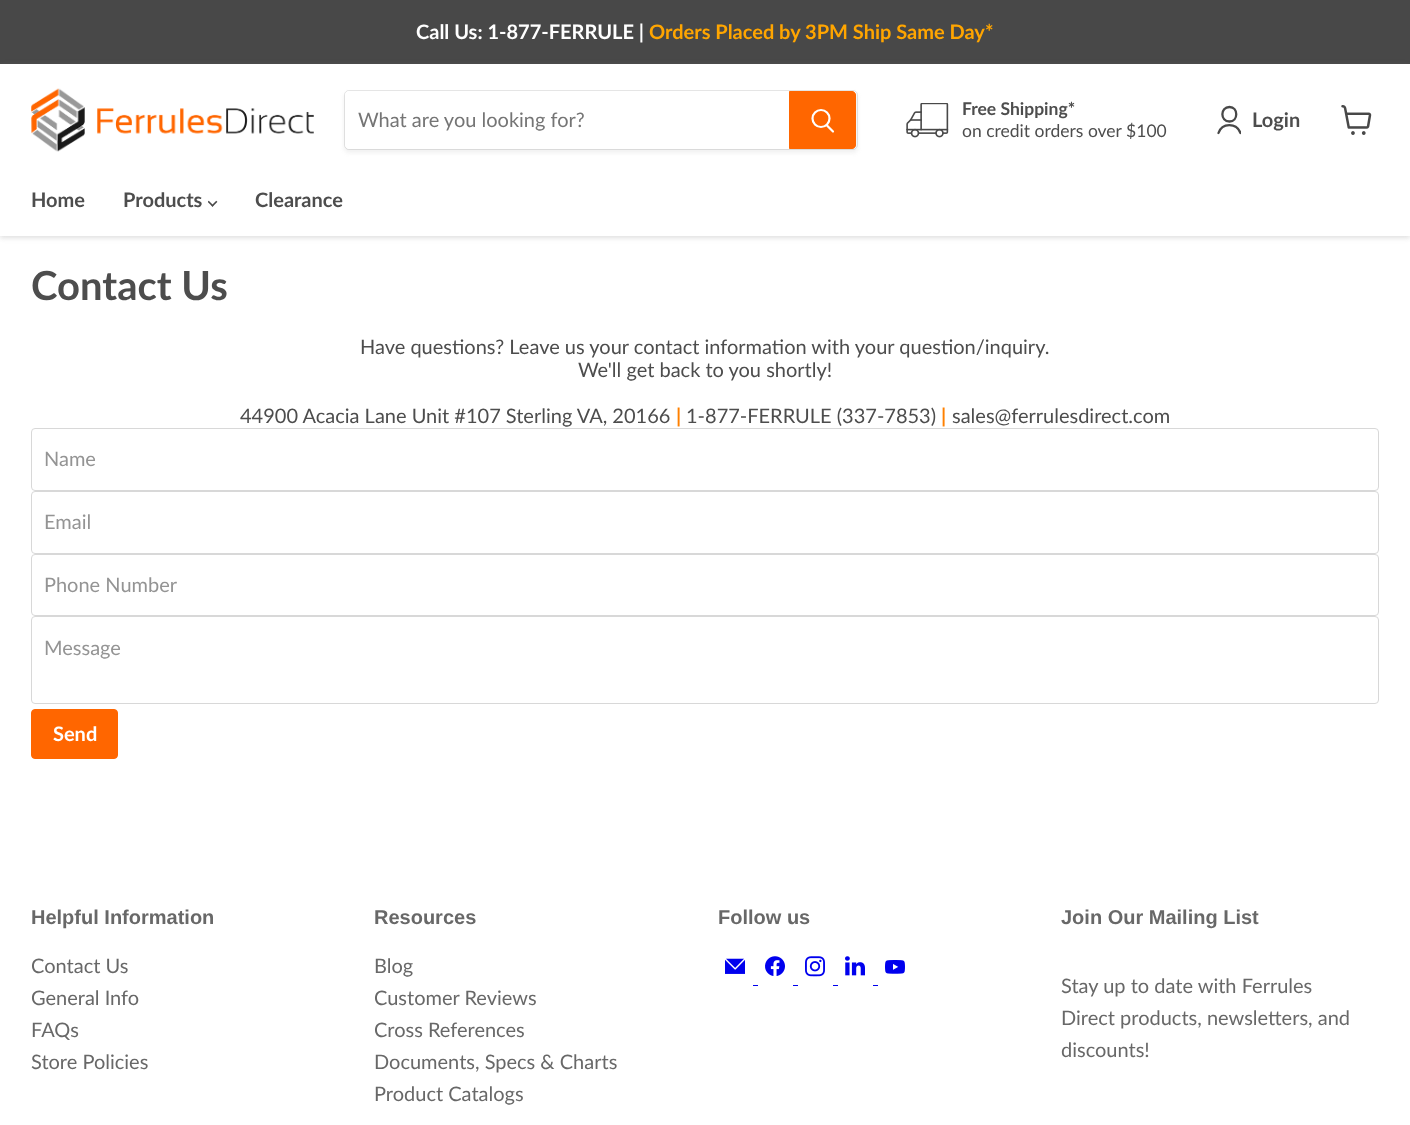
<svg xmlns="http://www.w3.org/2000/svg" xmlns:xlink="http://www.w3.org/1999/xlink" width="1410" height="1125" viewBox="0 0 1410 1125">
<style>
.cls-1{font:bold 20px Lato;fill:#ffffff}
.cls-2{font:bold 20px Lato;fill:#ffa500}
.cls-3{font:20px Lato;fill:#757575}
.cls-4{font:bold 17.5px Lato;fill:#4d4d4d}
.cls-5{font:17.5px Lato;fill:#4d4d4d}
.cls-6{font:bold 20px Lato;fill:#4d4d4d}
.cls-7{font:bold 40px Lato;fill:#4d4d4d}
.cls-8{font:20px Lato;fill:#4d4d4d}
.cls-9{font:bold 20px Lato;fill:#ff8000}
.cls-10{font:20px Lato;fill:#949494}
.cls-11{font:bold 20px Liberation Sans;fill:#686868}
.cls-12{font:20px Lato;fill:#686868}
</style>
<defs>
<clipPath id="clip1"><path d="M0 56H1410V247H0ZM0 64H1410V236H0Z" clip-rule="evenodd"/></clipPath>
<clipPath id="clip2"><rect x="1216" y="105" width="25" height="30"/></clipPath>
</defs>
<rect width="100%" height="100%" fill="#ffffff"/>
<rect fill="#484848" x="0" y="0" width="1410" height="64"/>
<g clip-path="url(#clip1)">
<rect fill="#808080" fill-opacity="0.25" filter="blur(2.5px)" x="0" y="65" width="1410" height="173"/>
</g>
<image xlink:href="image0.png" x="31" y="88" width="283" height="64"/>
<rect fill="#808080" fill-opacity="0.11" filter="blur(2px)" x="344" y="93" width="514" height="60" rx="5"/>
<rect fill="none" stroke="#808080" stroke-opacity="0.2" x="344.5" y="90.5" width="513" height="59" rx="4.5"/>
<path fill="#ffffff" d="M349 91H789V149H349C347 149 345 147 345 145V95C345 93 347 91 349 91Z"/>
<path fill="#ff6600" stroke="#ff6600" d="M789.5 91.5H852C854 91.5 855.5 93 855.5 95V145C855.5 147 854 148.5 852 148.5H789.5Z"/>
<path fill="none" stroke="#ffffff" stroke-width="2.2" stroke-linecap="round" d="M833 131.5L827 125.5"/>
<circle fill="none" stroke="#ffffff" stroke-width="2.2" cx="821" cy="118.5" r="8.5"/>
<image xlink:href="image1.png" x="906" y="103" width="43" height="35"/>
<path fill="none" stroke="#484848" stroke-width="2.3" stroke-linecap="round" stroke-linejoin="round" d="M1229.5 121.5C1238.5 121.5 1238.5 107 1229.5 107C1220 107 1220 121.5 1229.5 121.5Z"/>
<g clip-path="url(#clip2)">
<path fill="none" stroke="#484848" stroke-width="2.3" stroke-linecap="round" stroke-linejoin="round" d="M1240.5 133C1236.5 122.5 1222 122.5 1218.5 133"/>
</g>
<image xlink:href="image2.png" x="1341" y="105" width="31" height="30"/>
<image xlink:href="image3.png" x="208" y="200" width="10" height="7"/>
<rect fill="none" stroke="#d8d8d8" x="31.5" y="428.5" width="1347" height="62" rx="3.5"/>
<rect fill="none" stroke="#d8d8d8" x="31.5" y="491.5" width="1347" height="62" rx="3.5"/>
<rect fill="none" stroke="#d8d8d8" x="31.5" y="554.5" width="1347" height="61" rx="3.5"/>
<rect fill="none" stroke="#d8d8d8" x="31.5" y="616.5" width="1347" height="87" rx="3.5"/>
<rect fill="#ff6600" stroke="#ff6600" x="31.5" y="709.5" width="86" height="49" rx="3.5"/>
<image xlink:href="image4.png" x="725" y="958" width="20" height="16"/>
<image xlink:href="image5.png" x="765" y="956" width="20" height="20"/>
<image xlink:href="image6.png" x="805" y="956" width="20" height="21"/>
<image xlink:href="image7.png" x="845" y="956" width="20" height="20"/>
<image xlink:href="image8.png" x="885" y="960" width="20" height="14"/>
<rect fill="#0000ee" x="753" y="985" width="5" height="1"/>
<rect fill="#0000ee" x="793" y="985" width="5" height="1"/>
<rect fill="#0000ee" x="833" y="985" width="5" height="1"/>
<rect fill="#0000ee" x="873" y="985" width="5" height="1"/>
<text class="cls-1" x="416" y="39">Call Us: 1-877-FERRULE |</text>
<text class="cls-2" x="649" y="39">Orders Placed by 3PM Ship Same Day*</text>
<text class="cls-3" x="358" y="127">What are you looking for?</text>
<text class="cls-4" x="962" y="115">Free Shipping*</text>
<text class="cls-5" x="962" y="137">on credit orders over $100</text>
<text class="cls-6" x="1252" y="127">Login</text>
<text class="cls-6" x="31" y="207">Home</text>
<text class="cls-6" x="123" y="207">Products</text>
<text class="cls-6" x="255" y="207">Clearance</text>
<text class="cls-7" x="31" y="300">Contact Us</text>
<text class="cls-8" x="360" y="354">Have questions? Leave us your contact information with your question/inquiry.</text>
<text class="cls-8" x="578" y="377">We'll get back to you shortly!</text>
<text class="cls-8" x="240" y="423">44900 Acacia Lane Unit #107 Sterling VA, 20166</text>
<text class="cls-9" x="676" y="423">|</text>
<text class="cls-8" x="686" y="423">1-877-FERRULE (337-7853)</text>
<text class="cls-9" x="941" y="423">|</text>
<text class="cls-8" x="952" y="423">sales@ferrulesdirect.com</text>
<text class="cls-10" x="44" y="466">Name</text>
<text class="cls-10" x="44" y="529">Email</text>
<text class="cls-10" x="44" y="592">Phone Number</text>
<text class="cls-10" x="44" y="655">Message</text>
<text class="cls-1" x="53" y="741">Send</text>
<text class="cls-11" x="31" y="924">Helpful Information</text>
<text class="cls-12"><tspan x="31" y="973">Contact Us</tspan><tspan x="31" y="1005">General Info</tspan><tspan x="31" y="1037">FAQs</tspan><tspan x="31" y="1069">Store Policies</tspan></text>
<text class="cls-11" x="374" y="924">Resources</text>
<text class="cls-12"><tspan x="374" y="973">Blog</tspan><tspan x="374" y="1005">Customer Reviews</tspan><tspan x="374" y="1037">Cross References</tspan><tspan x="374" y="1069">Documents, Specs &amp; Charts</tspan><tspan x="374" y="1101">Product Catalogs</tspan></text>
<text class="cls-11" x="718" y="924">Follow us</text>
<text class="cls-11" x="1061" y="924">Join Our Mailing List</text>
<text class="cls-12"><tspan x="1061" y="993">Stay up to date with Ferrules</tspan><tspan x="1061" y="1025">Direct products, newsletters, and</tspan><tspan x="1061" y="1057">discounts!</tspan></text>
</svg>
